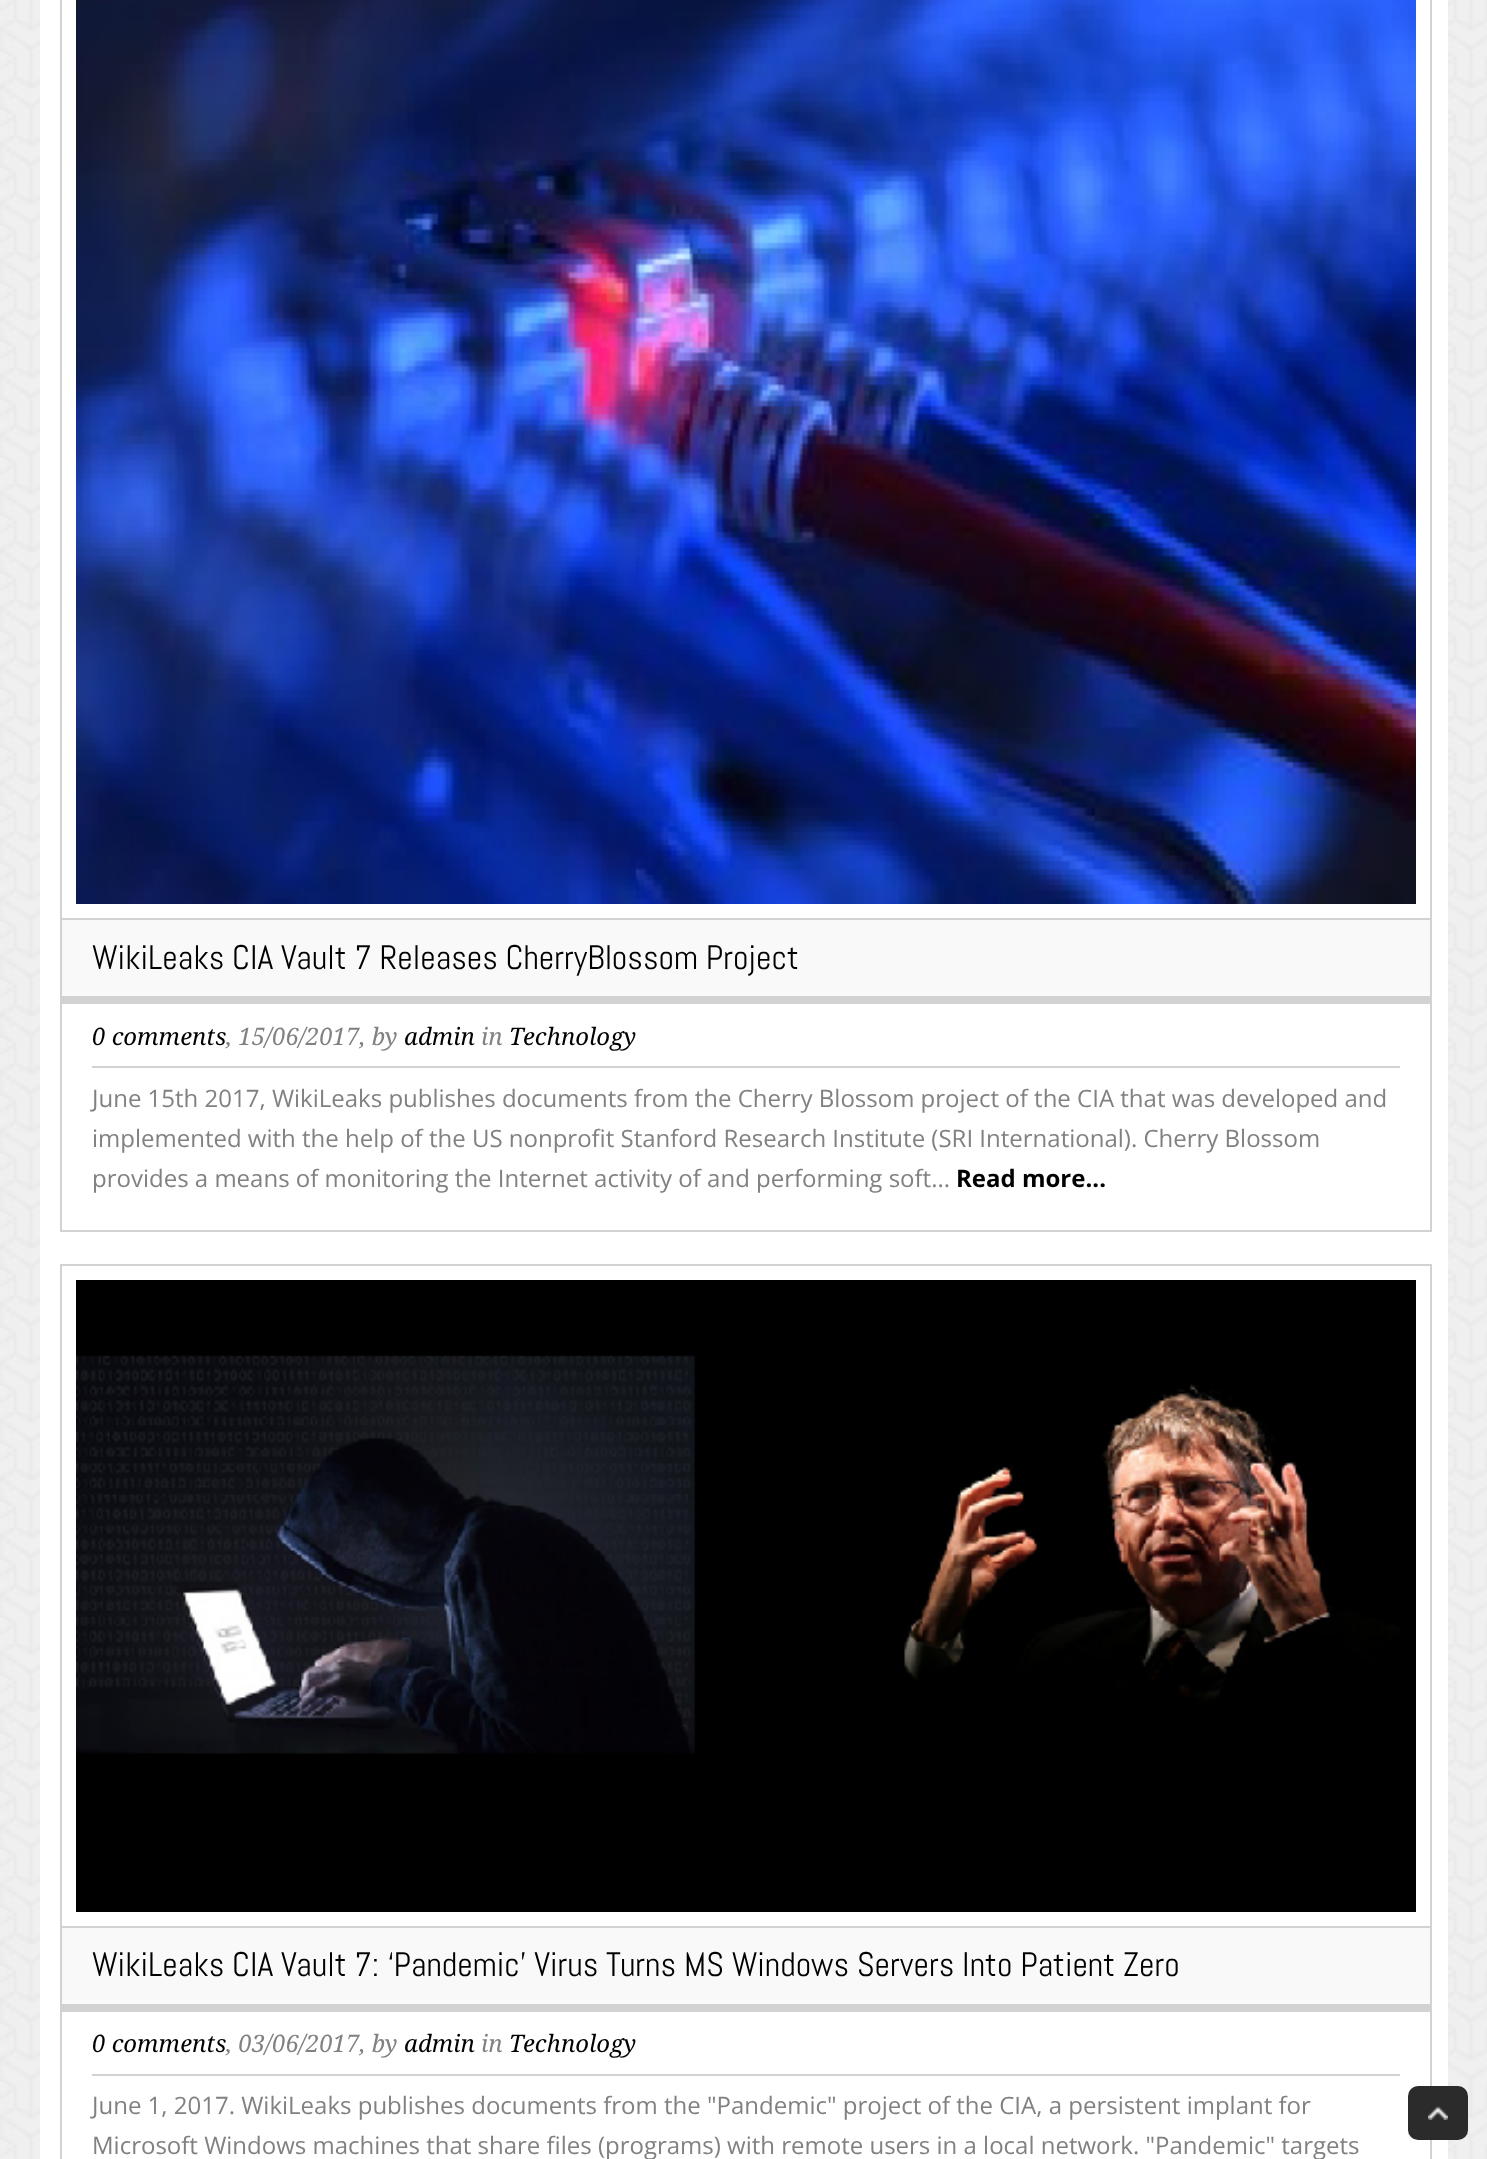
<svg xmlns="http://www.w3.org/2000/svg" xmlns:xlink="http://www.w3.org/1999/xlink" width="1487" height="2159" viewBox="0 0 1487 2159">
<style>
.cls-1{font:34px Abel;fill:#000000}
.cls-2{font:italic 24px Droid Serif;fill:#000000}
.cls-3{font:italic 24px Droid Serif;fill:#818181}
.cls-4{font:24px Open Sans;fill:#818181}
.cls-5{font:bold 24px Open Sans;fill:#000000}
</style>
<rect width="100%" height="100%" fill="#ffffff"/>
<image xlink:href="image0.png" x="0" y="0" width="1487" height="2159"/>
<rect fill="#ffffff" x="40" y="0" width="1408" height="2159"/>
<rect fill="none" stroke="#d3d2d2" stroke-width="2" x="61" y="-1" width="1370" height="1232"/>
<rect fill="#d3d2d2" x="62" y="918" width="1370" height="2"/>
<image xlink:href="image1.png" x="76" y="0" width="1340" height="904"/>
<rect fill="#f9f9f9" x="62" y="920" width="1368" height="76"/>
<rect fill="#d3d2d2" x="62" y="996" width="1368" height="8"/>
<rect fill="#d3d2d2" x="92" y="1066" width="1308" height="2"/>
<rect fill="none" stroke="#d3d2d2" stroke-width="2" x="61" y="1265" width="1370" height="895"/>
<rect fill="#d3d2d2" x="62" y="1926" width="1370" height="2"/>
<image xlink:href="image2.png" x="76" y="1280" width="1340" height="632"/>
<rect fill="#f9f9f9" x="62" y="1928" width="1368" height="76"/>
<rect fill="#d3d2d2" x="62" y="2004" width="1368" height="8"/>
<rect fill="#d3d2d2" x="92" y="2074" width="1308" height="2"/>
<rect fill="#272727" fill-opacity="0.98" x="1408" y="2086" width="60" height="54" rx="10"/>
<image xlink:href="image3.png" x="1428" y="2106" width="20" height="14"/>
<text class="cls-1" x="92" y="969">WikiLeaks CIA Vault 7 Releases CherryBlossom Project</text>
<text class="cls-2" x="92" y="1045">0 comments</text>
<text class="cls-3" x="226" y="1045">, 15/06/2017, by</text>
<text class="cls-2" x="404" y="1045">admin</text>
<text class="cls-3" x="481" y="1045">in</text>
<text class="cls-2" x="509" y="1045">Technology</text>
<text class="cls-4"><tspan x="92" y="1107">June 15th 2017, WikiLeaks publishes documents from the Cherry Blossom project of the CIA that was developed and</tspan><tspan x="92" y="1147">implemented with the help of the US nonprofit Stanford Research Institute (SRI International). Cherry Blossom</tspan><tspan x="92" y="1187">provides a means of monitoring the Internet activity of and performing soft...</tspan></text>
<text class="cls-5" x="956" y="1187">Read more...</text>
<text class="cls-1" x="92" y="1976">WikiLeaks CIA Vault 7: ‘Pandemic’ Virus Turns MS Windows Servers Into Patient Zero</text>
<text class="cls-2" x="92" y="2052">0 comments</text>
<text class="cls-3" x="226" y="2052">, 03/06/2017, by</text>
<text class="cls-2" x="404" y="2052">admin</text>
<text class="cls-3" x="481" y="2052">in</text>
<text class="cls-2" x="509" y="2052">Technology</text>
<text class="cls-4"><tspan x="92" y="2114">June 1, 2017. WikiLeaks publishes documents from the "Pandemic" project of the CIA, a persistent implant for</tspan><tspan x="92" y="2154">Microsoft Windows machines that share files (programs) with remote users in a local network. "Pandemic" targets</tspan></text>
</svg>
